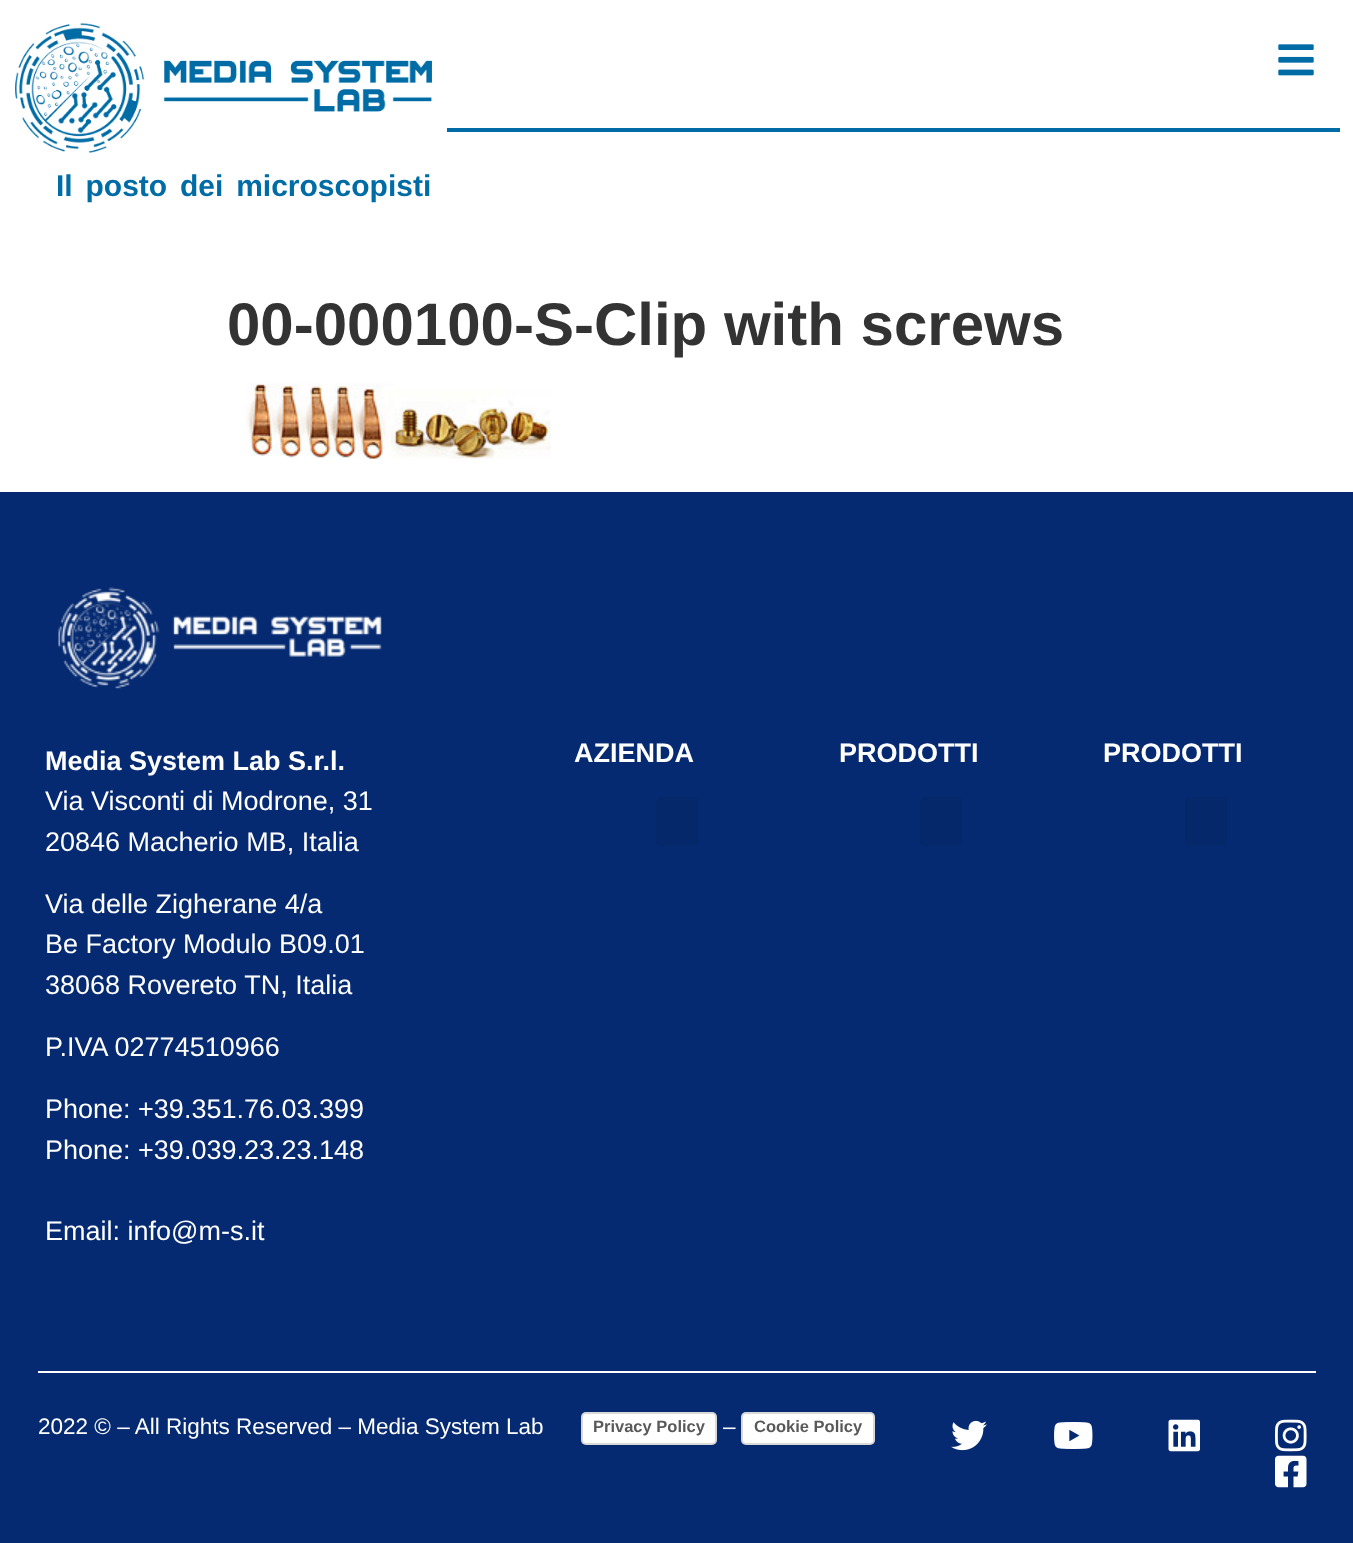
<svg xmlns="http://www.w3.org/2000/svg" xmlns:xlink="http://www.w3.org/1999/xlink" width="1353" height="1543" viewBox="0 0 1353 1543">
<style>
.cls-1{font:bold 30px Liberation Sans;fill:#006ca6}
.cls-2{font:bold 60px Liberation Sans;fill:#333333}
.cls-3{font:bold 27px Liberation Sans;fill:#ffffff}
.cls-4{font:27px Liberation Sans;fill:#ffffff}
.cls-5{font:22.5px Liberation Sans;fill:#ffffff}
.cls-6{font:bold 16.5px Liberation Sans;fill:#595959}
</style>
<rect width="100%" height="100%" fill="#ffffff"/>
<rect fill="#006ca6" x="447" y="128" width="893" height="4"/>
<image xlink:href="image0.png" x="1278" y="44" width="36" height="32"/>
<image xlink:href="image1.png" x="15" y="23" width="417" height="130"/>
<image xlink:href="image2.png" x="246" y="383" width="305" height="76"/>
<rect fill="#052a71" x="0" y="492" width="1353" height="1051"/>
<image xlink:href="image3.png" x="58" y="587" width="324" height="102"/>
<rect fill="#05286b" x="656" y="797" width="42" height="49" rx="5"/>
<rect fill="#05286b" x="920" y="797" width="42" height="49" rx="5"/>
<rect fill="#05286b" x="1185" y="797" width="42" height="49" rx="5"/>
<rect fill="#ffffff" x="38" y="1371" width="1278" height="2"/>
<rect fill="#000000" fill-opacity="0.15" filter="blur(1px)" x="582" y="1415" width="134" height="30" rx="3"/>
<rect fill="#ffffff" x="581" y="1412" width="136" height="33" rx="5"/>
<rect fill="none" stroke="#000000" stroke-opacity="0.15" stroke-width="2" x="582" y="1413" width="134" height="31" rx="4"/>
<rect fill="#000000" fill-opacity="0.15" filter="blur(1px)" x="743" y="1415" width="130" height="30" rx="3"/>
<rect fill="#ffffff" x="741" y="1412" width="134" height="33" rx="5"/>
<rect fill="none" stroke="#000000" stroke-opacity="0.15" stroke-width="2" x="742" y="1413" width="132" height="31" rx="4"/>
<image xlink:href="image4.png" x="951" y="1420" width="36" height="31"/>
<image xlink:href="image5.png" x="1054" y="1422" width="39" height="27"/>
<image xlink:href="image6.png" x="1168" y="1419" width="32" height="33"/>
<image xlink:href="image7.png" x="1275" y="1419" width="32" height="33"/>
<image xlink:href="image8.png" x="1275" y="1455" width="32" height="33"/>
<text class="cls-1" x="56" y="196" word-spacing="4.5">Il posto dei microscopisti</text>
<text class="cls-2" x="227" y="345">00-000100-S-Clip with screws</text>
<text class="cls-3" x="45" y="770">Media System Lab S.r.l.</text>
<text class="cls-4"><tspan x="45" y="810">Via Visconti di Modrone, 31</tspan><tspan x="45" y="851">20846 Macherio MB, Italia</tspan></text>
<text class="cls-4"><tspan x="45" y="913">Via delle Zigherane 4/a</tspan><tspan x="45" y="953">Be Factory Modulo B09.01</tspan><tspan x="45" y="994">38068 Rovereto TN, Italia</tspan></text>
<text class="cls-4" x="45" y="1056">P.IVA 02774510966</text>
<text class="cls-4"><tspan x="45" y="1118">Phone: +39.351.76.03.399</tspan><tspan x="45" y="1159">Phone: +39.039.23.23.148</tspan></text>
<text class="cls-4" x="45" y="1240">Email: info@m-s.it</text>
<text class="cls-3" x="574" y="762">AZIENDA</text>
<text class="cls-3" x="839" y="762">PRODOTTI</text>
<text class="cls-3" x="1103" y="762">PRODOTTI</text>
<text class="cls-5" x="38" y="1434">2022 © – All Rights Reserved – Media System Lab</text>
<text class="cls-6" x="593" y="1432">Privacy Policy</text>
<text class="cls-5" x="723" y="1434">–</text>
<text class="cls-6" x="754" y="1432">Cookie Policy</text>
</svg>
